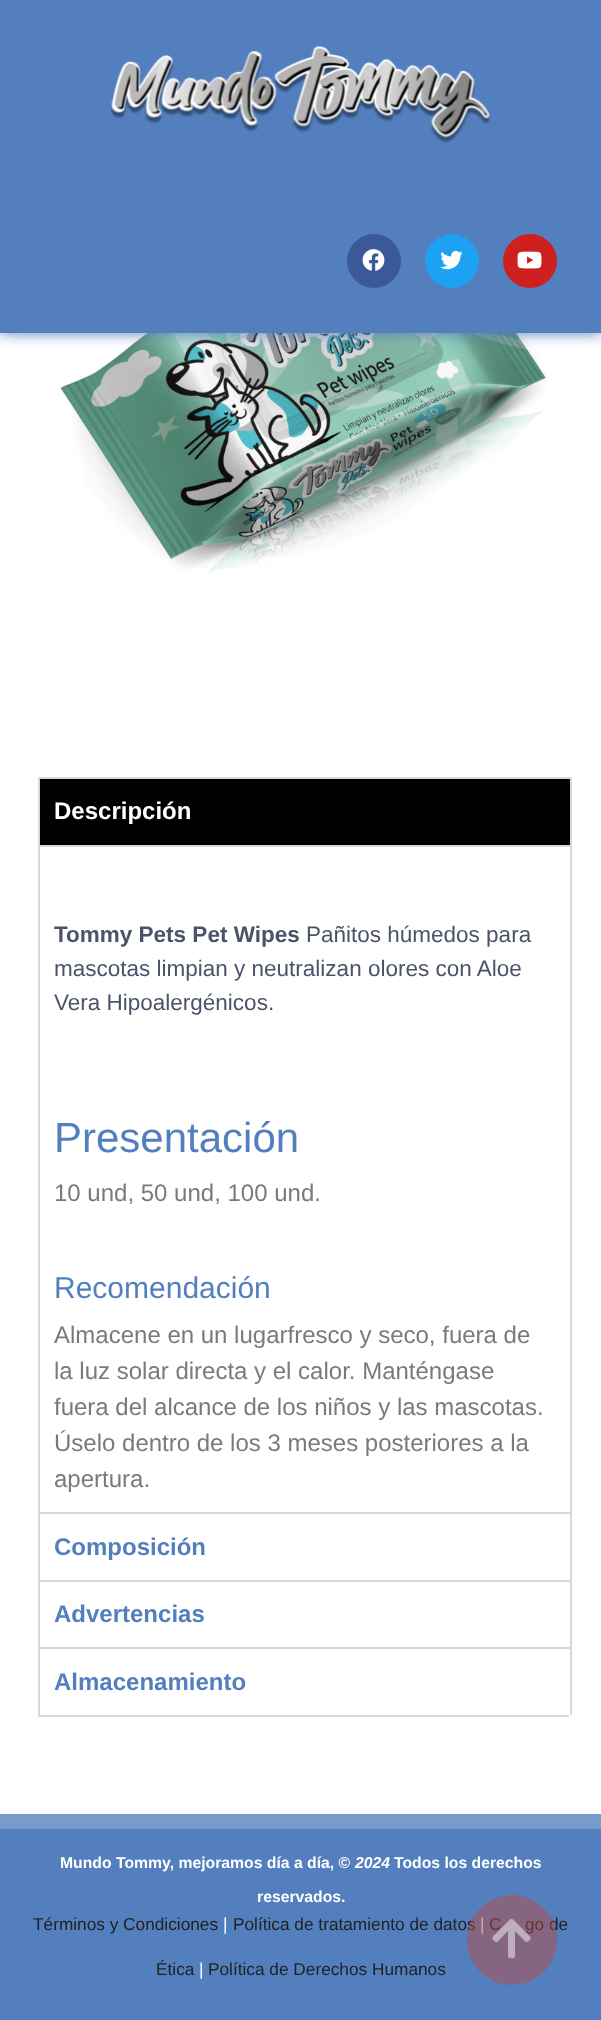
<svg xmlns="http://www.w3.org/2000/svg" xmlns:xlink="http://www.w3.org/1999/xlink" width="601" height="2020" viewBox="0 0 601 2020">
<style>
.cls-1{font:bold 24px Liberation Sans;fill:#ffffff}
.cls-2{font:bold 22.5px Liberation Sans;fill:#4b5369}
.cls-3{font:22.5px Liberation Sans;fill:#4b5369}
.cls-4{font:42px Liberation Sans;fill:#537fbe}
.cls-5{font:24px Liberation Sans;fill:#7a7a7a}
.cls-6{font:30px Liberation Sans;fill:#537fbe}
.cls-7{font:bold 24px Liberation Sans;fill:#537fbe}
.cls-8{font:bold 15.75px Liberation Sans;fill:#ffffff}
.cls-9{font:italic bold 15.75px Liberation Sans;fill:#ffffff}
.cls-10{font:17.25px Liberation Sans;fill:#222222}
.cls-11{font:17.25px Liberation Sans;fill:#ffffff}
</style>
<rect width="100%" height="100%" fill="#ffffff"/>
<image xlink:href="image4.png" x="60" y="333" width="486" height="241"/>
<rect fill="#537fbe" filter="blur(7.5px)" x="0" y="0" width="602" height="333"/>
<rect fill="#537fbe" x="0" y="0" width="601" height="333"/>
<image xlink:href="image0.png" x="110" y="46" width="381" height="97"/>
<circle fill="#3b5998" cx="374" cy="261" r="27"/>
<image xlink:href="image1.png" x="362" y="249" width="23" height="22"/>
<circle fill="#1da1f2" cx="452" cy="261" r="27"/>
<image xlink:href="image2.png" x="440" y="250" width="23" height="20"/>
<circle fill="#cd201f" cx="530" cy="261" r="27"/>
<image xlink:href="image3.png" x="517" y="251" width="25" height="18"/>
<rect fill="#d5d8dc" x="38" y="1715" width="531" height="2"/>
<rect fill="#000000" x="40" y="779" width="530" height="66"/>
<rect fill="#d5d8dc" x="38" y="777" width="534" height="2"/>
<rect fill="#d5d8dc" x="570" y="777" width="2" height="68"/>
<rect fill="#d5d8dc" x="38" y="777" width="2" height="68"/>
<rect fill="#d5d8dc" x="38" y="845" width="534" height="2"/>
<rect fill="#d5d8dc" x="570" y="845" width="2" height="667"/>
<rect fill="#d5d8dc" x="38" y="845" width="2" height="667"/>
<rect fill="#d5d8dc" x="38" y="1512" width="534" height="2"/>
<rect fill="#d5d8dc" x="570" y="1512" width="2" height="68"/>
<rect fill="#d5d8dc" x="38" y="1512" width="2" height="68"/>
<rect fill="#d5d8dc" x="38" y="1580" width="534" height="2"/>
<rect fill="#d5d8dc" x="570" y="1580" width="2" height="67"/>
<rect fill="#d5d8dc" x="38" y="1580" width="2" height="67"/>
<rect fill="#d5d8dc" x="38" y="1647" width="534" height="2"/>
<rect fill="#d5d8dc" x="570" y="1647" width="2" height="68"/>
<rect fill="#d5d8dc" x="38" y="1647" width="2" height="68"/>
<rect fill="#537fbe" x="0" y="1829" width="601" height="191"/>
<rect fill="#789bcc" x="0" y="1814" width="601" height="15"/>
<text class="cls-1" x="54" y="819">Descripción</text>
<text class="cls-2" x="54" y="942">Tommy Pets Pet Wipes</text>
<text class="cls-3" x="306" y="942">Pañitos húmedos para</text>
<text class="cls-3"><tspan x="54" y="976">mascotas limpian y neutralizan olores con Aloe</tspan><tspan x="54" y="1010">Vera Hipoalergénicos.</tspan></text>
<text class="cls-4" x="54" y="1152">Presentación</text>
<text class="cls-5" x="54" y="1201">10 und, 50 und, 100 und.</text>
<text class="cls-6" x="54" y="1298">Recomendación</text>
<text class="cls-5"><tspan x="54" y="1343">Almacene en un lugarfresco y seco, fuera de</tspan><tspan x="54" y="1379">la luz solar directa y el calor. Manténgase</tspan><tspan x="54" y="1415">fuera del alcance de los niños y las mascotas.</tspan><tspan x="54" y="1451">Úselo dentro de los 3 meses posteriores a la</tspan><tspan x="54" y="1487">apertura.</tspan></text>
<text class="cls-7" x="54" y="1555">Composición</text>
<text class="cls-7" x="54" y="1622">Advertencias</text>
<text class="cls-7" x="54" y="1690">Almacenamiento</text>
<text class="cls-8" x="60" y="1868">Mundo Tommy, mejoramos día a día, ©</text>
<text class="cls-9" x="355" y="1868">2024</text>
<text class="cls-8" x="394" y="1868">Todos los derechos</text>
<text class="cls-8" x="257" y="1902">reservados.</text>
<text class="cls-10" x="33" y="1930">Términos y Condiciones</text>
<text class="cls-11" x="223" y="1930">|</text>
<text class="cls-10" x="233" y="1930">Política de tratamiento de datos</text>
<text class="cls-11" x="480" y="1930">|</text>
<text class="cls-10" x="489" y="1930">C</text>
<text class="cls-10" x="525" y="1930">go de</text>
<text class="cls-10" x="156" y="1975">Ética</text>
<text class="cls-11" x="199" y="1975">|</text>
<text class="cls-10" x="208" y="1975">Política de Derechos Humanos</text>
<circle fill="#bd4940" fill-opacity="0.48" cx="512" cy="1940" r="45"/>
<image xlink:href="image5.png" x="492" y="1918" width="39" height="41"/>
</svg>
